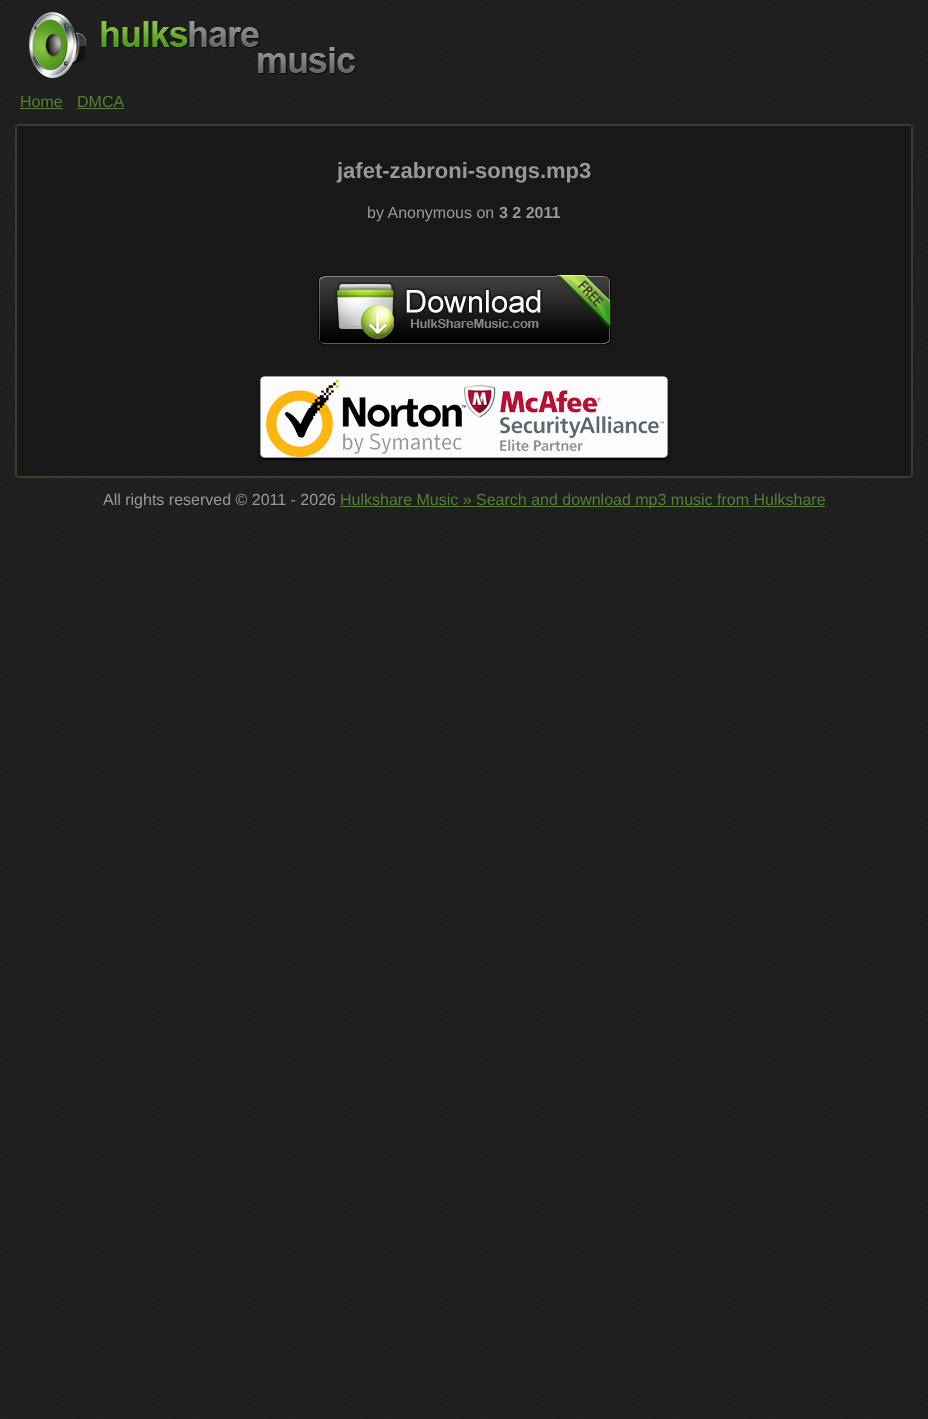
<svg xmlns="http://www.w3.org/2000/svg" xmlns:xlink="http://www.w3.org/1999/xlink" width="928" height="1419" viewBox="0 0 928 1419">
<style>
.cls-1{font:16px Liberation Sans;fill:#568132}
.cls-2{font:bold 22px Liberation Sans;fill:#999999}
.cls-3{font:16px Liberation Sans;fill:#999999}
.cls-4{font:bold 16px Liberation Sans;fill:#999999}
</style>
<rect width="100%" height="100%" fill="#ffffff"/>
<image xlink:href="image0.png" x="0" y="0" width="928" height="1419"/>
<image xlink:href="image1.png" x="29" y="12" width="328" height="66"/>
<rect fill="#568132" x="20" y="108" width="43" height="1"/>
<rect fill="#568132" x="77" y="108" width="47" height="1"/>
<rect fill="#181818" x="15" y="124" width="898" height="354" rx="3"/>
<rect fill="none" stroke="#344129" x="16.5" y="125.5" width="895" height="351" rx="1.5"/>
<rect fill="none" stroke="#3a3a3a" x="15.5" y="124.5" width="897" height="353" rx="2.5"/>
<image xlink:href="image2.png" x="318" y="274" width="293" height="72"/>
<image xlink:href="image3.png" x="259" y="376" width="410" height="85"/>
<rect fill="#568132" x="340" y="506" width="485" height="1"/>
<text class="cls-1" x="20" y="107">Home</text>
<text class="cls-1" x="77" y="107">DMCA</text>
<text class="cls-2" x="337" y="178">jafet-zabroni-songs.mp3</text>
<text class="cls-3" x="367" y="218">by Anonymous on</text>
<text class="cls-4" x="499" y="218">3 2 2011</text>
<text class="cls-3" x="103" y="505">All rights reserved © 2011 - 2026</text>
<text class="cls-1" x="340" y="505">Hulkshare Music » Search and download mp3 music from Hulkshare</text>
</svg>
